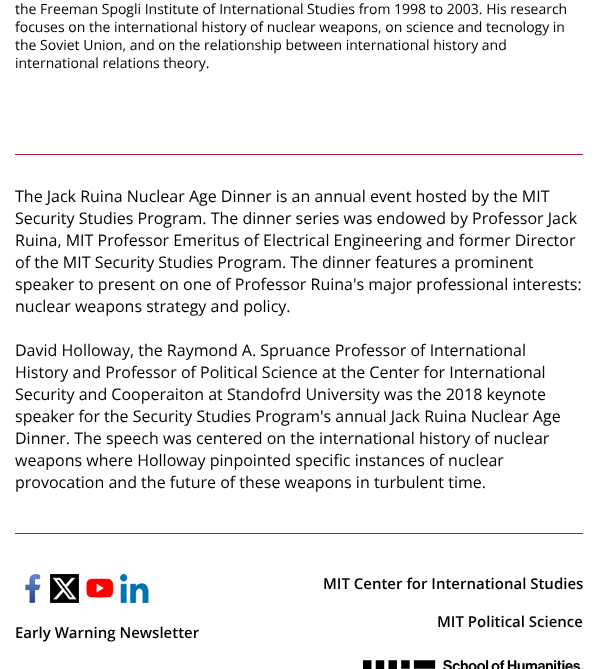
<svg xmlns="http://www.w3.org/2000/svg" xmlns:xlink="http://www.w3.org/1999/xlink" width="598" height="669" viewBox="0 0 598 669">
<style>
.cls-1{font:14px Open Sans;fill:#000000}
.cls-2{font:16px Open Sans;fill:#000000}
.cls-3{font:600 15px Open Sans;fill:#000000}
</style>
<rect width="100%" height="100%" fill="#ffffff"/>
<rect fill="#a32136" x="15" y="154" width="568" height="1"/>
<rect fill="#a32136" x="15" y="533" width="568" height="1"/>
<image xlink:href="image0.png" x="363" y="660" width="220" height="9"/>
<image xlink:href="image1.png" x="25" y="574" width="16" height="29"/>
<image xlink:href="image2.png" x="50" y="574" width="29" height="29"/>
<image xlink:href="image3.png" x="86" y="578" width="28" height="20"/>
<image xlink:href="image4.png" x="120" y="574" width="29" height="29"/>
<text class="cls-1"><tspan x="15" y="14">the Freeman Spogli Institute of International Studies from 1998 to 2003. His research</tspan><tspan x="15" y="32">focuses on the international history of nuclear weapons, on science and tecnology in</tspan><tspan x="15" y="50">the Soviet Union, and on the relationship between international history and</tspan><tspan x="15" y="68">international relations theory.</tspan></text>
<text class="cls-2"><tspan x="15" y="202">The Jack Ruina Nuclear Age Dinner is an annual event hosted by the MIT</tspan><tspan x="15" y="224">Security Studies Program. The dinner series was endowed by Professor Jack</tspan><tspan x="15" y="246">Ruina, MIT Professor Emeritus of Electrical Engineering and former Director</tspan><tspan x="15" y="268">of the MIT Security Studies Program. The dinner features a prominent</tspan><tspan x="15" y="290">speaker to present on one of Professor Ruina's major professional interests:</tspan><tspan x="15" y="312">nuclear weapons strategy and policy.</tspan></text>
<text class="cls-2"><tspan x="15" y="356">David Holloway, the Raymond A. Spruance Professor of International</tspan><tspan x="15" y="378">History and Professor of Political Science at the Center for International</tspan><tspan x="15" y="400">Security and Cooperaiton at Standofrd University was the 2018 keynote</tspan><tspan x="15" y="422">speaker for the Security Studies Program's annual Jack Ruina Nuclear Age</tspan><tspan x="15" y="444">Dinner. The speech was centered on the international history of nuclear</tspan><tspan x="15" y="466">weapons where Holloway pinpointed specific instances of nuclear</tspan><tspan x="15" y="488">provocation and the future of these weapons in turbulent time.</tspan></text>
<text class="cls-3" x="323" y="589">MIT Center for International Studies</text>
<text class="cls-3" x="437" y="627">MIT Political Science</text>
<text class="cls-3" x="15" y="638">Early Warning Newsletter</text>
</svg>
